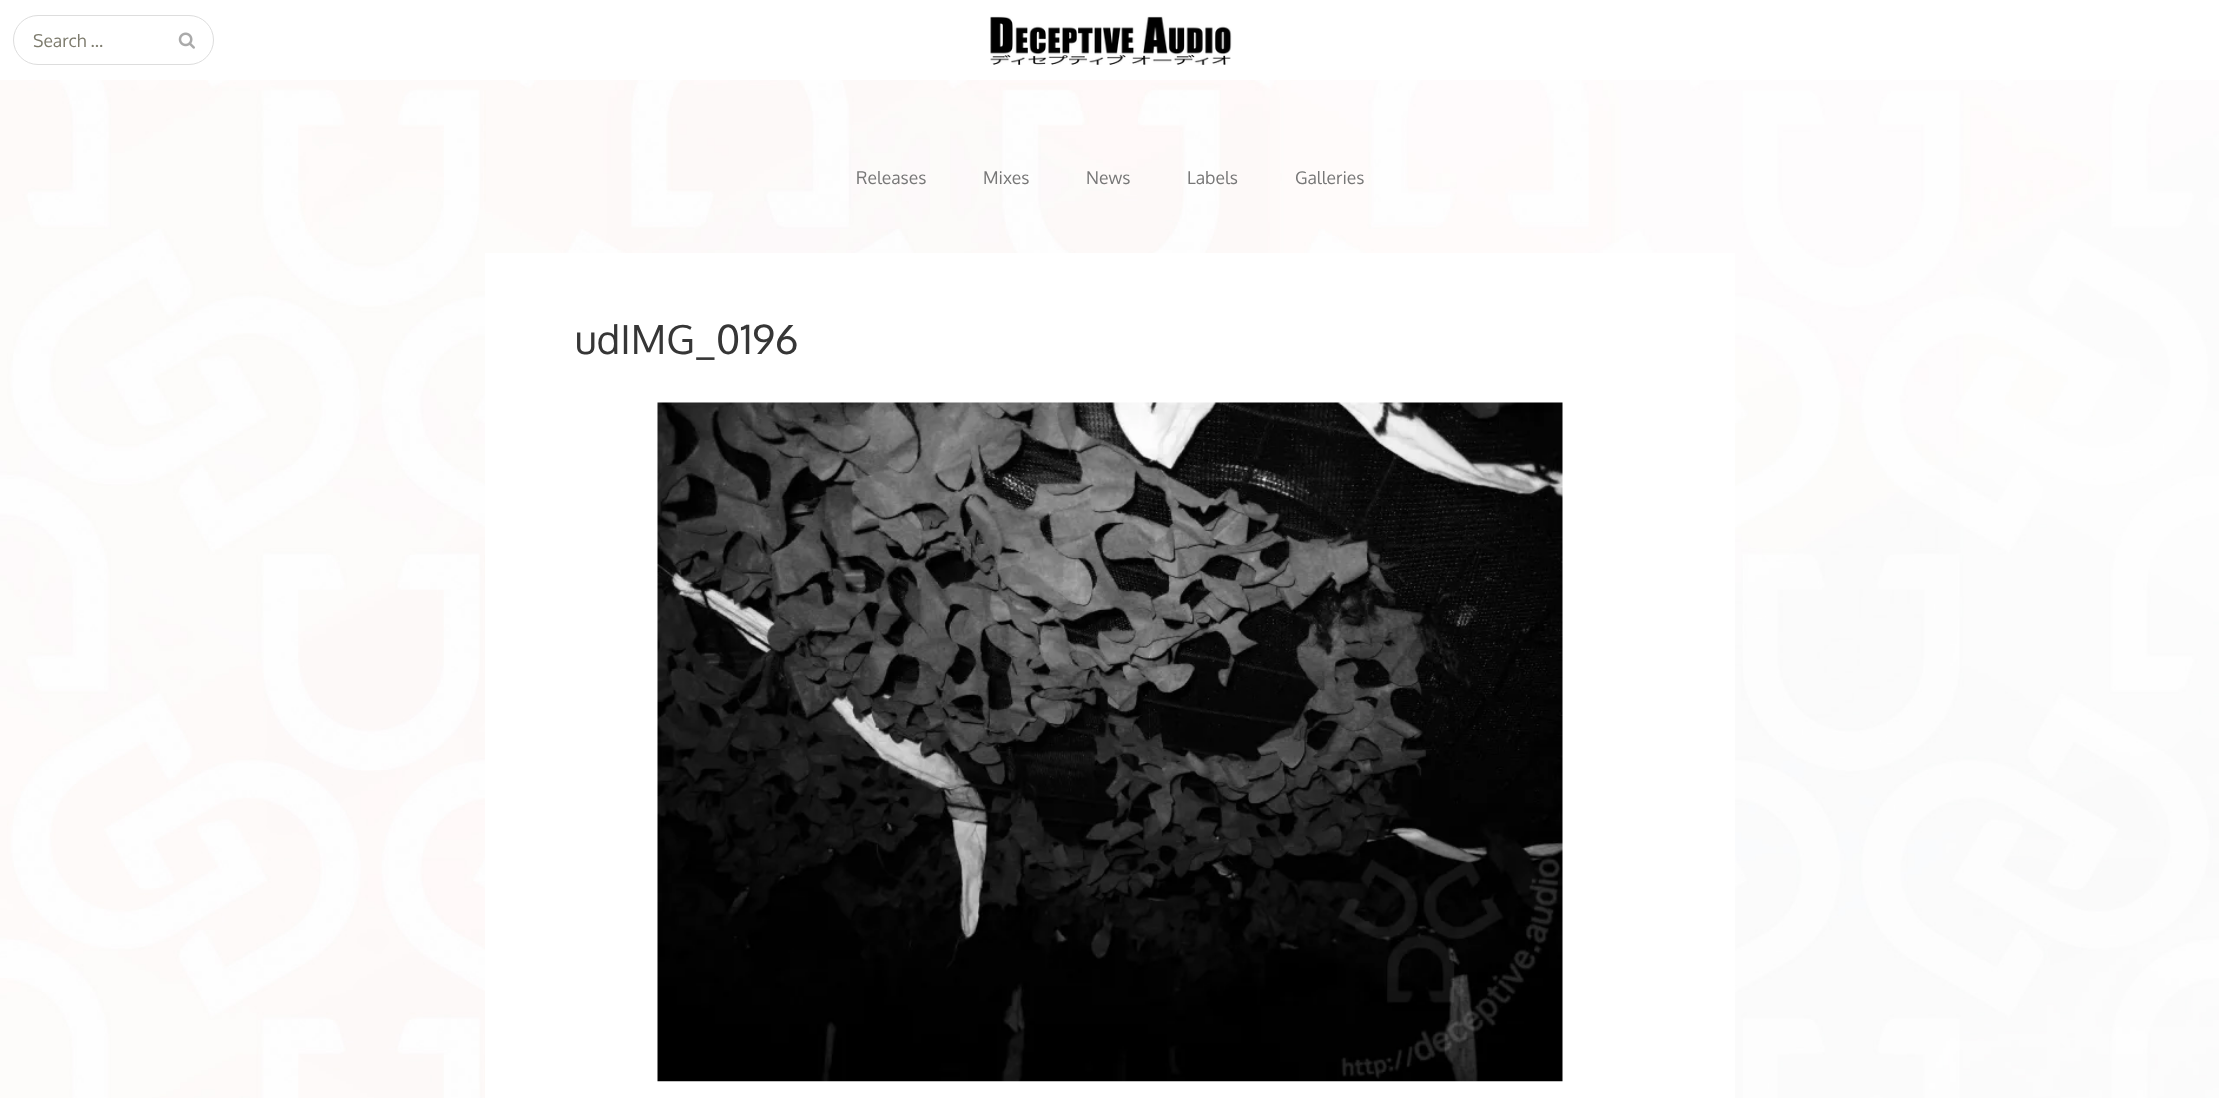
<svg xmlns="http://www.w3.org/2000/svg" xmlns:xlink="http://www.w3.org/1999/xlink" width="2219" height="1098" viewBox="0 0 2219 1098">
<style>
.cls-1{font:17.5px Oxygen;fill:#7d7b6d}
.cls-2{font:17.5px Oxygen;fill:#777777}
.cls-3{font:40px Oxygen;fill:#363636}
</style>
<rect width="100%" height="100%" fill="#ffffff"/>
<rect fill="none" stroke="#dddddd" x="13.5" y="15.5" width="200" height="49" rx="24.5"/>
<image xlink:href="image0.png" x="178" y="32" width="17" height="17"/>
<image xlink:href="image1.png" x="990" y="16" width="242" height="49"/>
<image xlink:href="image2.png" x="0" y="80" width="2219" height="1018"/>
<rect fill="#ffffff" x="485" y="253" width="1250" height="845"/>
<image xlink:href="image3.png" x="657" y="402" width="906" height="680"/>
<text class="cls-1" x="33" y="47">Search …</text>
<text class="cls-2" x="856" y="184">Releases</text>
<text class="cls-2" x="983" y="184">Mixes</text>
<text class="cls-2" x="1086" y="184">News</text>
<text class="cls-2" x="1187" y="184">Labels</text>
<text class="cls-2" x="1295" y="184">Galleries</text>
<text class="cls-3" x="575" y="354">udIMG_0196</text>
</svg>
